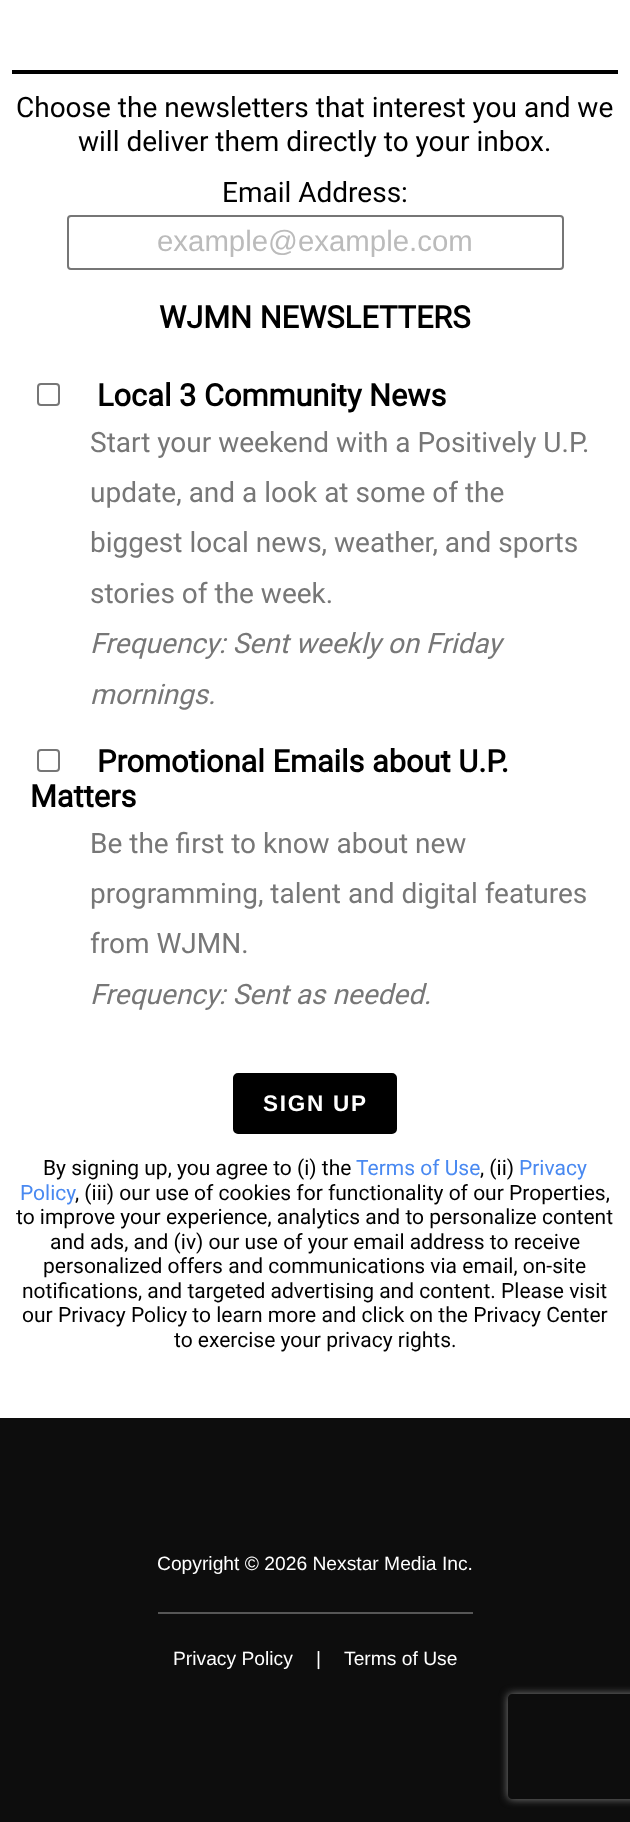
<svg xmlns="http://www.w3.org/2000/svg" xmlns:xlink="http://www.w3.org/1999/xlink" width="630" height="1822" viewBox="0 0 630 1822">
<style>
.cls-1{font:28px Roboto;fill:#000000}
.cls-2{font:29.4px Liberation Sans;fill:#bbbbbb}
.cls-3{font:bold 30.75px Roboto;fill:#000000}
.cls-4{font:28px Roboto;fill:#777777}
.cls-5{font:italic 28px Roboto;fill:#777777}
.cls-6{font:bold 22.5px Liberation Sans;letter-spacing:1.75px;fill:#ffffff}
.cls-7{font:21px Roboto;fill:#000000}
.cls-8{font:21px Roboto;fill:#4989f1}
.cls-9{font:19.25px Liberation Sans;fill:#ffffff}
</style>
<defs>
<clipPath id="clip1"><path d="M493 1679H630V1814H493ZM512 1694H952C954 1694 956 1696 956 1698V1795C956 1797 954 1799 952 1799H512C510 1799 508 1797 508 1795V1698C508 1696 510 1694 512 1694Z" clip-rule="evenodd"/></clipPath>
</defs>
<rect width="100%" height="100%" fill="#0d0d0d"/>
<rect fill="#ffffff" x="0" y="0" width="630" height="1418"/>
<rect fill="#000000" x="12" y="70" width="606" height="4"/>
<rect fill="none" stroke="#767676" stroke-width="2" x="68" y="216" width="495" height="53" rx="3"/>
<rect fill="none" stroke="#767676" stroke-width="2" x="38" y="384" width="21" height="21" rx="3"/>
<rect fill="none" stroke="#767676" stroke-width="2" x="38" y="750" width="21" height="21" rx="3"/>
<rect fill="#000000" stroke="#ffffff" stroke-width="4" x="231" y="1071" width="168" height="65" rx="7"/>
<g clip-path="url(#clip1)">
<rect fill="#808080" filter="blur(4.5px)" x="508" y="1694" width="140" height="105" rx="4"/>
</g>
<rect fill="#565656" x="158" y="1612" width="315" height="2"/>
<text class="cls-1" x="16" y="117">Choose the newsletters that interest you and we</text>
<text class="cls-1" x="78" y="151">will deliver them directly to your inbox.</text>
<text class="cls-1" x="222" y="202">Email Address:</text>
<text class="cls-2" x="157" y="251">example@example.com</text>
<text class="cls-3" x="159" y="328">WJMN NEWSLETTERS</text>
<text class="cls-3" x="97" y="406">Local 3 Community News</text>
<text class="cls-4"><tspan x="90" y="452">Start your weekend with a Positively U.P.</tspan><tspan x="90" y="502">update, and a look at some of the</tspan><tspan x="90" y="552">biggest local news, weather, and sports</tspan><tspan x="90" y="603">stories of the week.</tspan></text>
<text class="cls-5"><tspan x="90" y="653">Frequency: Sent weekly on Friday</tspan><tspan x="90" y="704">mornings.</tspan></text>
<text class="cls-3" x="97" y="772">Promotional Emails about U.P.</text>
<text class="cls-3" x="30" y="807">Matters</text>
<text class="cls-4"><tspan x="90" y="853">Be the first to know about new</tspan><tspan x="90" y="903">programming, talent and digital features</tspan><tspan x="90" y="953">from WJMN.</tspan></text>
<text class="cls-5" x="90" y="1004">Frequency: Sent as needed.</text>
<text class="cls-6" x="263" y="1111">SIGN UP</text>
<text class="cls-7" x="43" y="1175">By signing up, you agree to (i) the</text>
<text class="cls-8" x="356" y="1175">Terms of Use</text>
<text class="cls-7" x="480" y="1175">, (ii)</text>
<text class="cls-8" x="519" y="1175">Privacy</text>
<text class="cls-8" x="20" y="1200">Policy</text>
<text class="cls-7" x="75" y="1200">, (iii) our use of cookies for functionality of our Properties,</text>
<text class="cls-7" x="16" y="1224">to improve your experience, analytics and to personalize content</text>
<text class="cls-7" x="50" y="1249">and ads, and (iv) our use of your email address to receive</text>
<text class="cls-7" x="43" y="1273">personalized offers and communications via email, on-site</text>
<text class="cls-7"><tspan x="22" y="1298">notifications, and targeted advertising and content. Please visit</tspan><tspan x="22" y="1322">our Privacy Policy to learn more and click on the Privacy Center</tspan></text>
<text class="cls-7" x="174" y="1347">to exercise your privacy rights.</text>
<text class="cls-9" x="157" y="1570">Copyright © 2026 Nexstar Media Inc.</text>
<text class="cls-9" x="173" y="1665">Privacy Policy</text>
<text class="cls-9" x="316" y="1665">|</text>
<text class="cls-9" x="344" y="1665">Terms of Use</text>
</svg>
